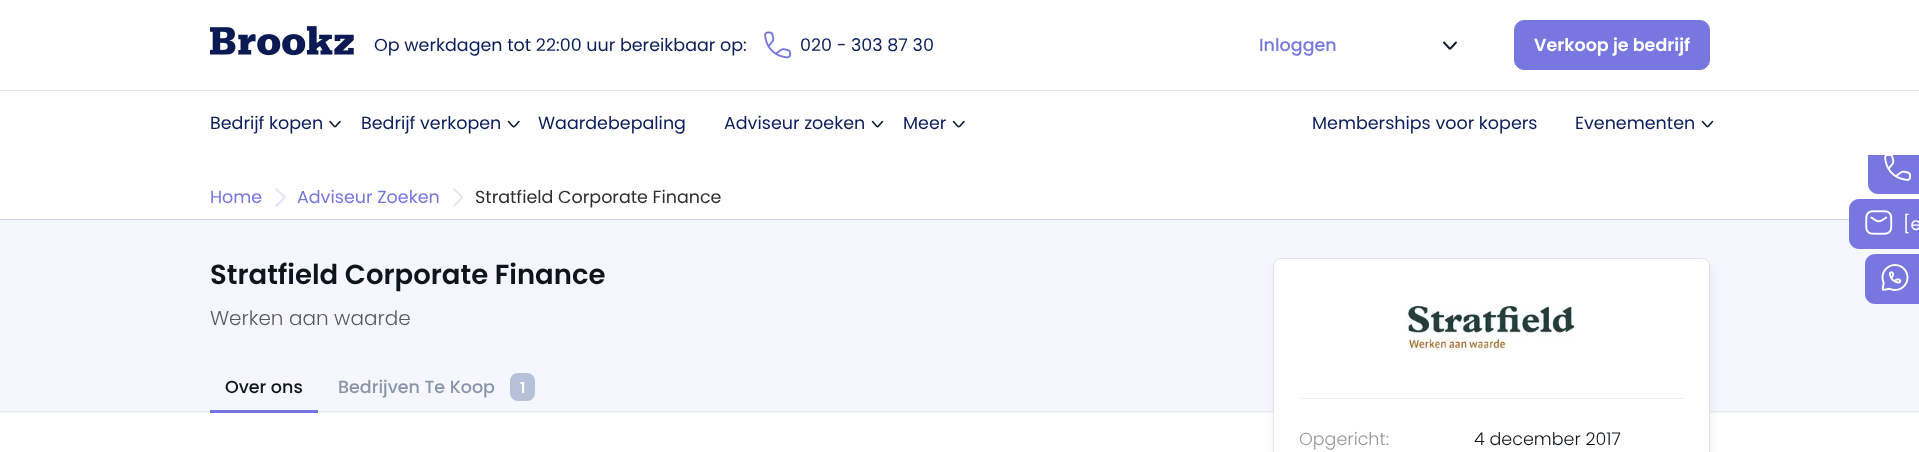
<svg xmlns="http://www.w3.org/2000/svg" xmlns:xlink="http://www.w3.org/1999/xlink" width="1919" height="452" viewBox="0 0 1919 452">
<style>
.cls-1{font:17.5px Poppins;fill:#0b1e5b}
.cls-2{font:500 17.5px Poppins;fill:#7777df}
.cls-3{font:600 17.5px Poppins;fill:#ffffff}
.cls-4{font:17.5px Poppins;fill:#7777df}
.cls-5{font:17.5px Poppins;fill:#2f2f2f}
.cls-6{font:17.5px Poppins;fill:#ffffff}
.cls-7{font:600 27.5px Poppins;fill:#0f151c}
.cls-8{font:300 20px Poppins;fill:#575b60}
.cls-9{font:500 17.5px Poppins;fill:#0f151c}
.cls-10{font:500 17.5px Poppins;fill:#8a95a8}
.cls-11{font:600 15px Poppins;fill:#ffffff}
.cls-12{font:300 17.5px Poppins;fill:#979797}
.cls-13{font:300 17.5px Poppins;fill:#0f151c}
</style>
<rect width="100%" height="100%" fill="#ffffff"/>
<path fill="#7777df" d="M1878 144H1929V194H1878C1872.5 194 1868 189.5 1868 184V154C1868 148.5 1872.5 144 1878 144Z"/>
<rect fill="#ffffff" x="1868" y="144" width="51" height="11"/>
<rect fill="#dfe2e8" x="0" y="90" width="1919" height="1"/>
<image xlink:href="image0.png" x="210" y="26" width="144" height="30"/>
<image xlink:href="image1.png" x="764" y="31" width="27" height="28"/>
<path fill="none" stroke="#0d1c2e" stroke-width="1.9" stroke-linecap="round" d="M1456 42.5L1450.5 48.5C1450 48.5 1450 48.5 1449.5 48.5L1444 42.5"/>
<rect fill="#7777df" stroke="#7777df" x="1514.5" y="20.5" width="195" height="49" rx="9.5"/>
<path fill="none" stroke="#0d1c2e" stroke-width="1.6" stroke-linecap="round" d="M340 121.5C333.5 128.5 336.5 128.5 330 121.5"/>
<path fill="none" stroke="#0d1c2e" stroke-width="1.6" stroke-linecap="round" d="M519 121.5C512.5 128.5 515 128.5 508.5 121.5"/>
<path fill="none" stroke="#0d1c2e" stroke-width="1.6" stroke-linecap="round" d="M882.5 121.5C876 128.5 879 128.5 872.5 121.5"/>
<path fill="none" stroke="#0d1c2e" stroke-width="1.6" stroke-linecap="round" d="M964 121.5C957.5 128.5 960 128.5 953.5 121.5"/>
<path fill="none" stroke="#0d1c2e" stroke-width="1.6" stroke-linecap="round" d="M1712.5 121.5C1706 128.5 1709 128.5 1702.5 121.5"/>
<path fill="none" stroke="#e4e4f9" stroke-width="1.9" stroke-linecap="round" d="M276 206L284.5 198C285 197.5 285 197.5 284.5 197L276 189"/>
<path fill="none" stroke="#e4e4f9" stroke-width="1.9" stroke-linecap="round" d="M454 206L462 198C462.5 197.5 462.5 197.5 462 197L454 189"/>
<image xlink:href="image2.png" x="1884" y="155" width="27" height="26"/>
<rect fill="#f5f7fe" x="0" y="220" width="1919" height="193"/>
<path fill="#7777df" d="M1859 199H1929V249H1859C1853.5 249 1849 244.5 1849 239V209C1849 203.5 1853.5 199 1859 199Z"/>
<image xlink:href="image3.png" x="1865" y="210" width="28" height="25"/>
<path fill="#7777df" d="M1875 254H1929V304H1875C1869.5 304 1865 299.5 1865 294V264C1865 258.5 1869.5 254 1875 254Z"/>
<image xlink:href="image4.png" x="1881" y="264" width="28" height="27"/>
<rect fill="#d2d2e2" x="0" y="219" width="1849" height="1"/>
<rect fill="#e8e8f0" x="0" y="411" width="1919" height="1"/>
<rect fill="#7777df" x="210" y="410" width="108" height="3"/>
<rect fill="#b5c1d6" x="510" y="373" width="25" height="28" rx="8"/>
<rect fill="#000000" fill-opacity="0.06" filter="blur(6px)" x="1274" y="265" width="437" height="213" rx="8"/>
<rect fill="#ffffff" stroke="#e3e3e3" x="1273.5" y="258.5" width="436" height="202" rx="7.5"/>
<rect fill="#eeeded" x="1299" y="398" width="385" height="1"/>
<image xlink:href="image5.png" x="1406" y="305" width="170" height="47"/>
<text class="cls-1" x="374" y="51">Op werkdagen tot 22:00 uur bereikbaar op:</text>
<text class="cls-1" x="800" y="51">020 - 303 87 30</text>
<text class="cls-2" x="1259" y="51">Inloggen</text>
<text class="cls-3" x="1534" y="51">Verkoop je bedrijf</text>
<text class="cls-1" x="210" y="129">Bedrijf kopen</text>
<text class="cls-1" x="361" y="129">Bedrijf verkopen</text>
<text class="cls-1" x="538" y="129">Waardebepaling</text>
<text class="cls-1" x="724" y="129">Adviseur zoeken</text>
<text class="cls-1" x="903" y="129">Meer</text>
<text class="cls-1" x="1312" y="129">Memberships voor kopers</text>
<text class="cls-1" x="1575" y="129">Evenementen</text>
<text class="cls-4" x="210" y="203">Home</text>
<text class="cls-4" x="297" y="203">Adviseur Zoeken</text>
<text class="cls-5" x="475" y="203">Stratfield Corporate Finance</text>
<text class="cls-6" x="1903" y="230">[e</text>
<text class="cls-7" x="210" y="284">Stratfield Corporate Finance</text>
<text class="cls-8" x="210" y="325">Werken aan waarde</text>
<text class="cls-9" x="225" y="393">Over ons</text>
<text class="cls-10" x="338" y="393">Bedrijven Te Koop</text>
<text class="cls-11" x="520" y="393">1</text>
<text class="cls-12" x="1299" y="445">Opgericht:</text>
<text class="cls-13" x="1474" y="445">4 december 2017</text>
</svg>
